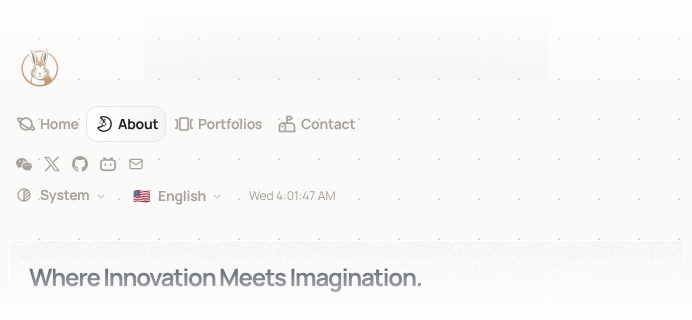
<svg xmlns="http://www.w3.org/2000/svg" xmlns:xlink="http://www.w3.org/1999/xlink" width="692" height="320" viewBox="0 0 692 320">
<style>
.cls-1{font:bold 14px Manrope;letter-spacing:-0.25px;fill:#a8a29e}
.cls-2{font:bold 14px Manrope;letter-spacing:-0.25px;fill:#1c1917}
.cls-3{font:bold 14px Noto Color Emoji;letter-spacing:-0.25px;fill:#a8a29e}
.cls-4{font:12px Manrope;fill:#a8a29e}
.cls-5{font:bold 24px Manrope;letter-spacing:-1.2px;fill:#111827}
</style>
<defs>
<radialGradient id="g1" gradientUnits="userSpaceOnUse" cx="0" cy="0" r="1" gradientTransform="matrix(718 0 0 279 346 0.1)"><stop offset="0" stop-color="#0d0d0d" stop-opacity="0.03"/><stop offset="1" stop-color="#0d0d0d" stop-opacity="0"/></radialGradient>
<linearGradient id="g2" gradientUnits="userSpaceOnUse" x1="346" y1="88" x2="346" y2="0"><stop offset="0" stop-color="#fefefe" stop-opacity="0"/><stop offset="1" stop-color="#fefefe"/></linearGradient>
<clipPath id="clip1"><rect x="86" y="106" width="80" height="36" rx="12"/></clipPath>
<linearGradient id="g3" gradientUnits="userSpaceOnUse" x1="87" y1="124" x2="165" y2="124"><stop offset="0" stop-color="#ffffff"/><stop offset="1" stop-color="#f5f5f4"/></linearGradient>
<linearGradient id="g4" gradientUnits="userSpaceOnUse" x1="346" y1="240" x2="346" y2="320"><stop offset="0" stop-color="#fefefe" stop-opacity="0"/><stop offset="1" stop-color="#fefefe"/></linearGradient>
</defs>
<rect width="100%" height="100%" fill="#fafaf9"/>
<image xlink:href="image0.png" x="8" y="8" width="682" height="312"/>
<rect fill="url(#g1)" x="144" y="1" width="404" height="78"/>
<image xlink:href="image1.png" x="21" y="48" width="38" height="39"/>
<rect fill="url(#g2)" x="0" y="0" width="692" height="86"/>
<image xlink:href="image2.png" x="16" y="117" width="20" height="14"/>
<g clip-path="url(#clip1)">
<rect fill="url(#g3)" x="87" y="106" width="78" height="36"/>
</g>
<rect fill="none" stroke="#e7e5e4" x="86.5" y="106.5" width="79" height="35" rx="11.5"/>
<image xlink:href="image3.png" x="97" y="116" width="15" height="16"/>
<image xlink:href="image4.png" x="174" y="117" width="20" height="14"/>
<image xlink:href="image5.png" x="278" y="115" width="18" height="18"/>
<image xlink:href="image6.png" x="16" y="158" width="16" height="13"/>
<image xlink:href="image7.png" x="44" y="156" width="16" height="16"/>
<image xlink:href="image8.png" x="72" y="156" width="16" height="16"/>
<image xlink:href="image9.png" x="100" y="157" width="16" height="15"/>
<image xlink:href="image10.png" x="129" y="158" width="14" height="12"/>
<image xlink:href="image11.png" x="17" y="188" width="14" height="14"/>
<image xlink:href="image12.png" x="97" y="194" width="8" height="5"/>
<image xlink:href="image13.png" x="213" y="194" width="8" height="5"/>
<rect fill="#000000" fill-opacity="0.1" filter="blur(12.5px)" x="13" y="265" width="666" height="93"/>
<rect fill="#fefefe" x="8" y="240" width="676" height="80"/>
<text class="cls-1" x="40" y="129">Home</text>
<text class="cls-2" x="118" y="129">About</text>
<text class="cls-1" x="198" y="129">Portfolios</text>
<text class="cls-1" x="301" y="129">Contact</text>
<text class="cls-1" x="40" y="200">System</text>
<text class="cls-3" x="133" y="201">🇺🇸</text>
<text class="cls-1" x="158" y="201">English</text>
<text class="cls-4" x="249" y="200">Wed 4:01:47 AM</text>
<text class="cls-5" x="29" y="286">Where Innovation Meets Imagination.</text>
<image xlink:href="image14.png" x="9" y="241" width="674" height="79"/>
<rect fill="url(#g4)" x="0" y="258" width="692" height="62"/>
</svg>
